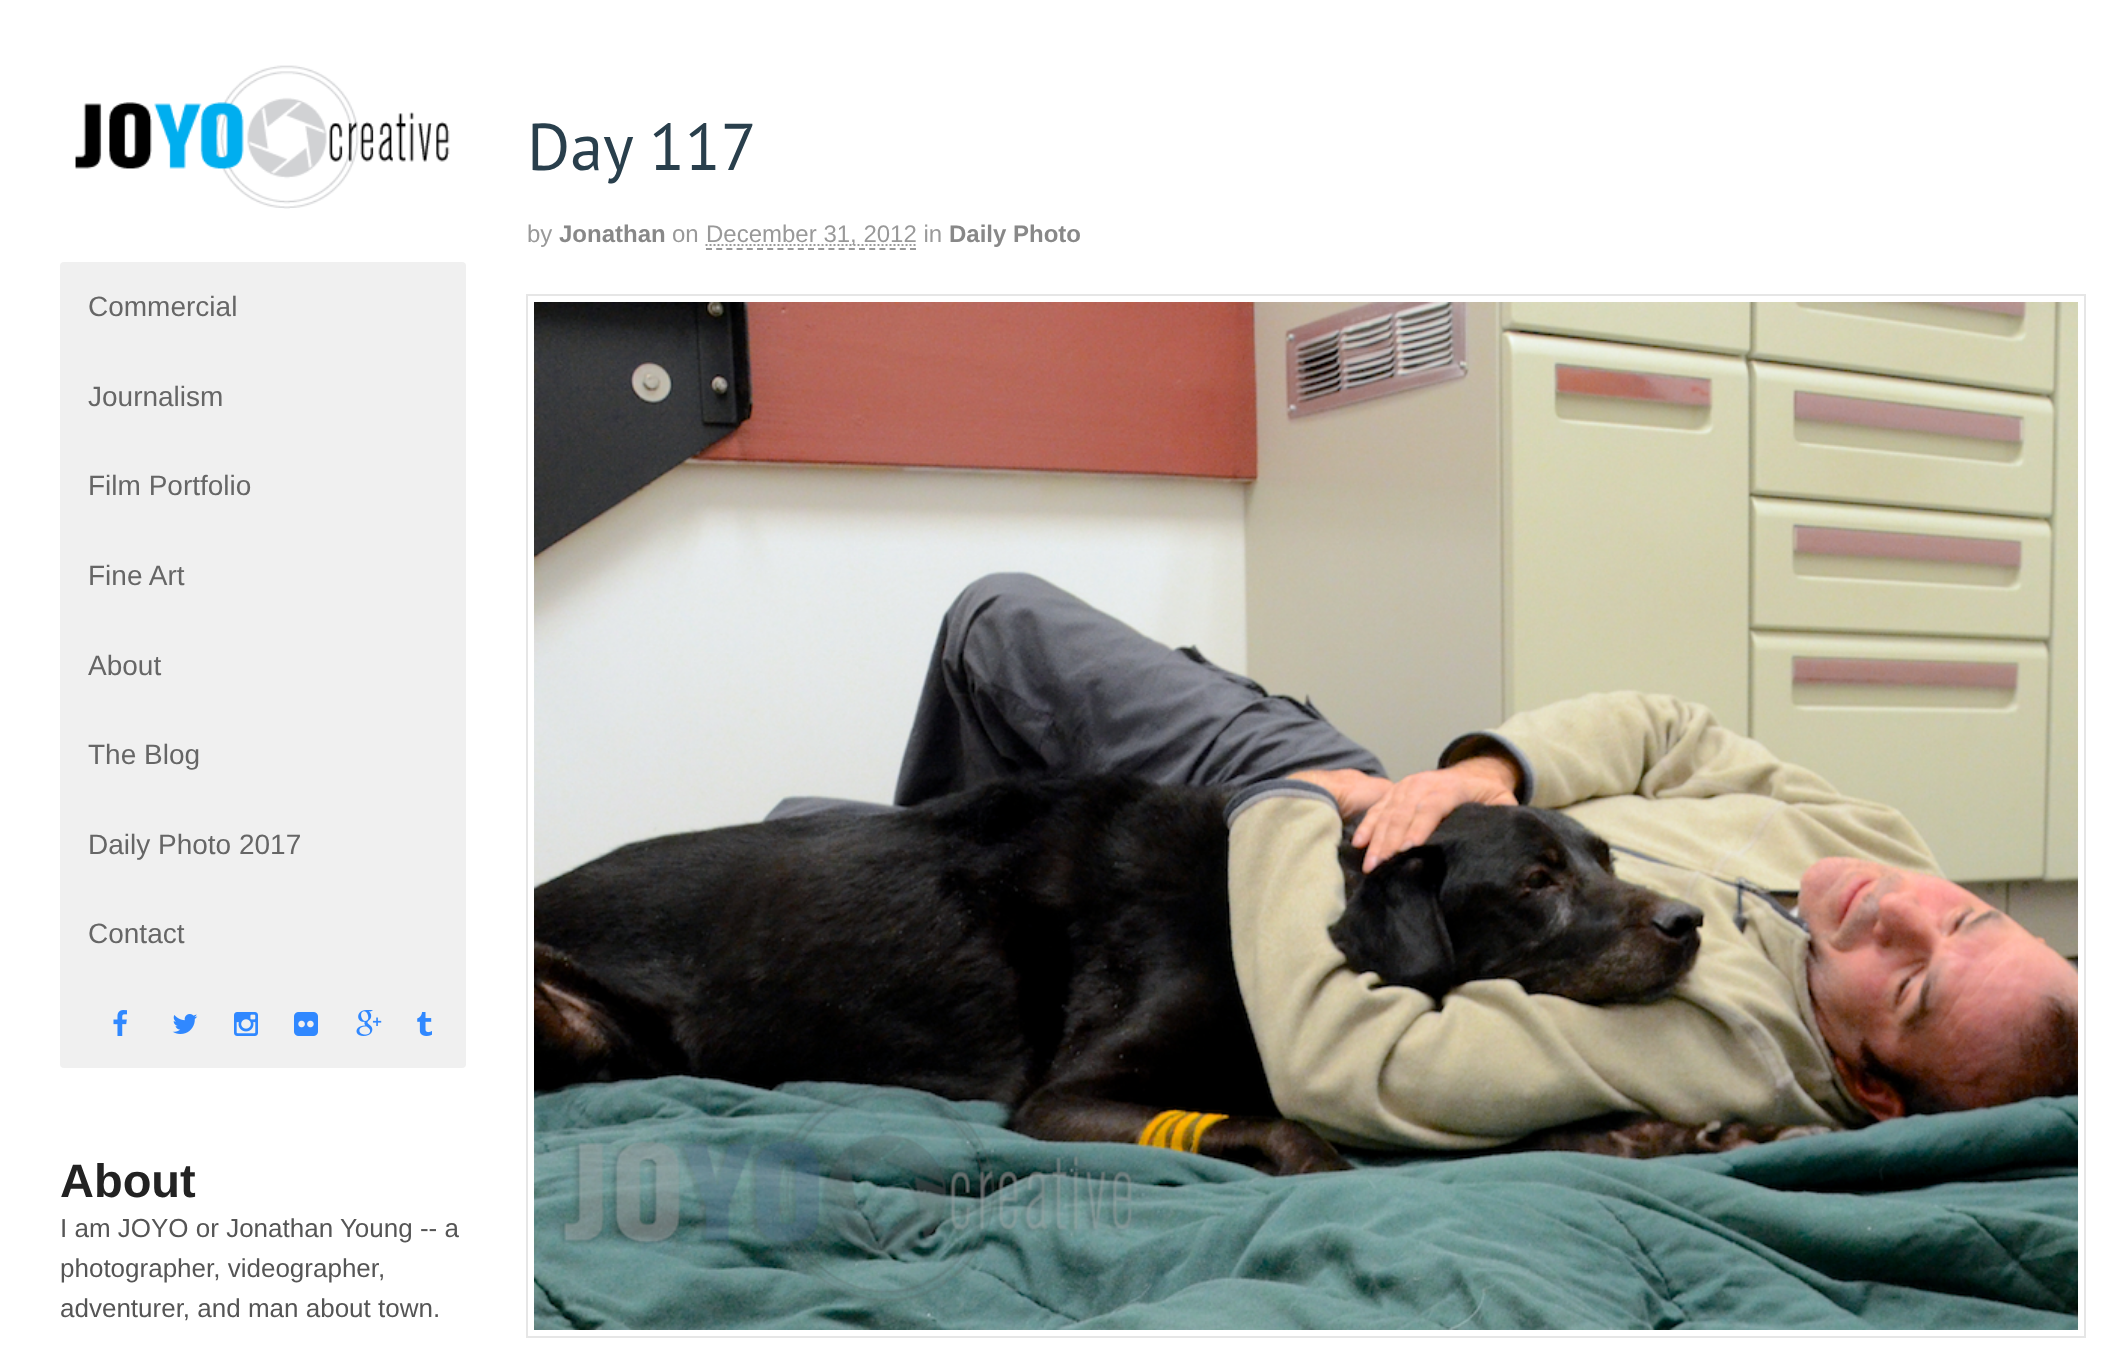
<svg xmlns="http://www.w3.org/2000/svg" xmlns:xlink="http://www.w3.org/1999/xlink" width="2116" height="1347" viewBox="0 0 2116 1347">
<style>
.cls-1{font:66px PT Sans;fill:#293f4c}
.cls-2{font:24px Liberation Sans;fill:#999999}
.cls-3{font:bold 24px Liberation Sans;fill:#888888}
.cls-4{font:28px Liberation Sans;fill:#666666}
.cls-5{font:bold 47px Liberation Sans;fill:#222222}
.cls-6{font:26px Liberation Sans;fill:#555555}
</style>
<rect width="100%" height="100%" fill="#ffffff"/>
<path fill="none" stroke="#999999" stroke-width="2" stroke-dasharray="6 4.2" d="M706 249H916"/>
<path fill="none" stroke="#999999" stroke-width="2" stroke-dasharray="2 2" d="M705.5 245H916.5"/>
<rect fill="none" stroke="#e6e6e6" stroke-width="2" x="527" y="295" width="1558" height="1042"/>
<image xlink:href="image0.png" x="534" y="302" width="1544" height="1028"/>
<image xlink:href="image1.png" x="75" y="65" width="375" height="144"/>
<rect fill="#f0f0f0" x="60" y="262" width="406" height="806" rx="4"/>
<image xlink:href="image2.png" x="113" y="1010" width="14" height="26"/>
<image xlink:href="image3.png" x="172" y="1014" width="26" height="20"/>
<image xlink:href="image4.png" x="234" y="1012" width="24" height="24"/>
<image xlink:href="image5.png" x="294" y="1012" width="24" height="24"/>
<image xlink:href="image6.png" x="356" y="1010" width="26" height="26"/>
<image xlink:href="image7.png" x="417" y="1012" width="15" height="24"/>
<text class="cls-1" x="527" y="170">Day 117</text>
<text class="cls-2" x="527" y="242">by</text>
<text class="cls-3" x="559" y="242">Jonathan</text>
<text class="cls-2" x="672" y="242">on</text>
<text class="cls-2" x="706" y="242">December 31, 2012 in</text>
<text class="cls-3" x="949" y="242">Daily Photo</text>
<text class="cls-4" x="88" y="316">Commercial</text>
<text class="cls-4" x="88" y="406">Journalism</text>
<text class="cls-4" x="88" y="495">Film Portfolio</text>
<text class="cls-4" x="88" y="585">Fine Art</text>
<text class="cls-4" x="88" y="675">About</text>
<text class="cls-4" x="88" y="764">The Blog</text>
<text class="cls-4" x="88" y="854">Daily Photo 2017</text>
<text class="cls-4" x="88" y="943">Contact</text>
<text class="cls-5" x="60" y="1197">About</text>
<text class="cls-6"><tspan x="60" y="1237">I am JOYO or Jonathan Young -- a</tspan><tspan x="60" y="1277">photographer, videographer,</tspan><tspan x="60" y="1317">adventurer, and man about town.</tspan></text>
</svg>
